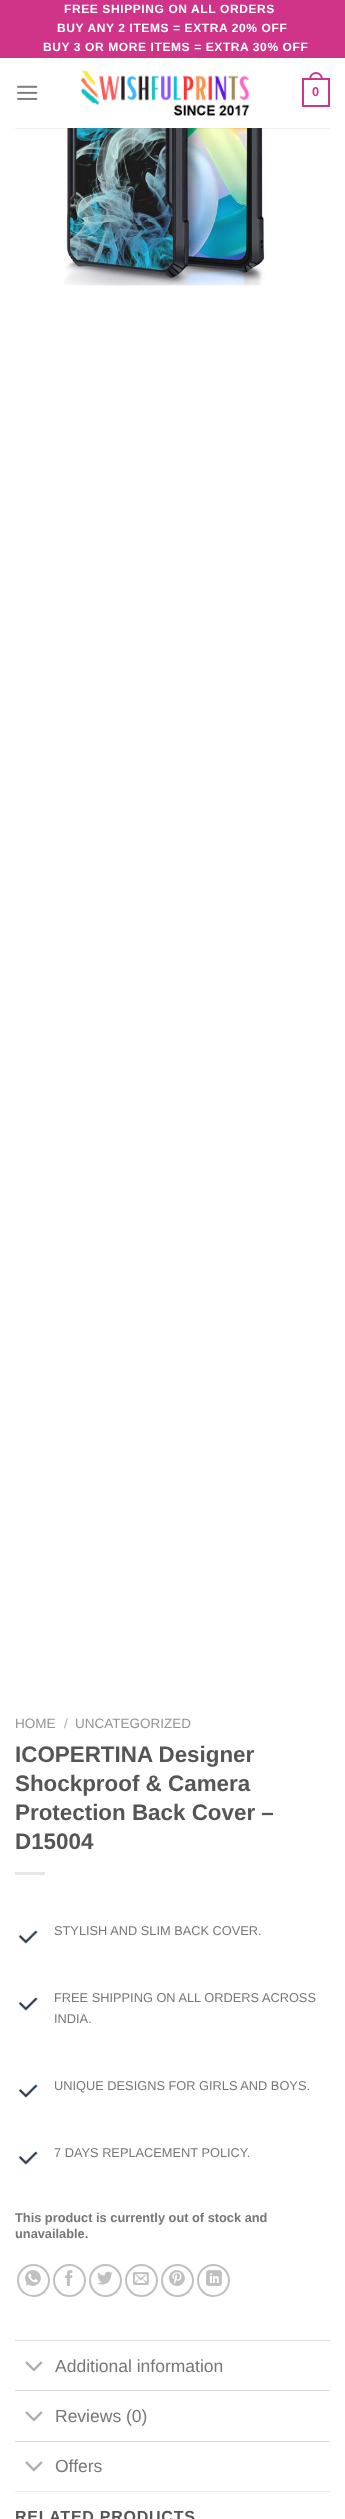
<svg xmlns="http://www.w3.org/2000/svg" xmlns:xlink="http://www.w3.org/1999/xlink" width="345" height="2519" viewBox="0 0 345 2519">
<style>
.cls-1{font:bold 12px Liberation Sans;letter-spacing:0.6px;fill:#ffffff}
.cls-2{font:bold 12.8px Liberation Sans;fill:#cf3489}
.cls-3{font:13.5px Liberation Sans;fill:#949494}
.cls-4{font:13.5px Liberation Sans;fill:#b2b2b2}
.cls-5{font:bold 22.4px Liberation Sans;fill:#555555}
.cls-6{font:12.8px Liberation Sans;fill:#777777}
.cls-7{font:bold 12.8px Liberation Sans;fill:#777777}
.cls-8{font:17.5px Liberation Sans;fill:#777777}
.cls-9{font:bold 16px Liberation Sans;letter-spacing:0.75px;fill:#555555}
</style>
<rect width="100%" height="100%" fill="#ffffff"/>
<rect fill="#cf3489" x="0" y="0" width="345" height="58"/>
<image xlink:href="image0.png" x="17" y="85" width="21" height="15"/>
<image xlink:href="image1.png" x="81" y="70" width="169" height="46"/>
<rect fill="none" stroke="#cf3489" stroke-width="2" x="303" y="79" width="26" height="27"/>
<path fill="#cf3489" fill-rule="evenodd" d="M316 72C320.5 72 323 76 323 80H309C309 76 311.5 72 316 72ZM316 74C319.5 74 321 77 321 80H311C311 77 312.5 74 316 74Z"/>
<image xlink:href="image2.png" x="64" y="128" width="203" height="158"/>
<rect fill="#777777" fill-opacity="0.1" x="15" y="128" width="315" height="1"/>
<rect fill="#e6e6e6" x="15" y="1872" width="30" height="3"/>
<image xlink:href="image3.png" x="18" y="1930" width="20" height="14"/>
<image xlink:href="image3.png" x="18" y="1997" width="20" height="14"/>
<image xlink:href="image4.png" x="18" y="2084" width="20" height="14"/>
<image xlink:href="image3.png" x="18" y="2151" width="20" height="14"/>
<circle fill="none" stroke="#c0c0c0" stroke-width="2" cx="33.5" cy="2280.5" r="15.5"/>
<image xlink:href="image5.png" x="25" y="2270" width="16" height="16"/>
<circle fill="none" stroke="#c0c0c0" stroke-width="2" cx="69.5" cy="2280.5" r="15.5"/>
<image xlink:href="image6.png" x="65" y="2270" width="8" height="16"/>
<circle fill="none" stroke="#c0c0c0" stroke-width="2" cx="105.5" cy="2280.5" r="15.5"/>
<image xlink:href="image7.png" x="97" y="2271" width="16" height="14"/>
<circle fill="none" stroke="#c0c0c0" stroke-width="2" cx="141.5" cy="2280.5" r="15.5"/>
<image xlink:href="image8.png" x="133" y="2272" width="16" height="13"/>
<circle fill="none" stroke="#c0c0c0" stroke-width="2" cx="177.5" cy="2280.5" r="15.5"/>
<image xlink:href="image9.png" x="169" y="2270" width="16" height="16"/>
<circle fill="none" stroke="#c0c0c0" stroke-width="2" cx="213.5" cy="2280.5" r="15.5"/>
<image xlink:href="image10.png" x="206" y="2270" width="16" height="16"/>
<rect fill="#dddddd" x="15" y="2340" width="315" height="1"/>
<image xlink:href="image11.png" x="25" y="2361" width="18" height="11"/>
<rect fill="#dddddd" x="15" y="2390" width="315" height="1"/>
<image xlink:href="image11.png" x="25" y="2411" width="18" height="11"/>
<rect fill="#dddddd" x="15" y="2441" width="315" height="1"/>
<image xlink:href="image11.png" x="25" y="2461" width="18" height="11"/>
<rect fill="#ececec" x="15" y="2491" width="315" height="1"/>
<text class="cls-1" x="64" y="13">FREE SHIPPING ON ALL ORDERS</text>
<text class="cls-1" x="57" y="32">BUY ANY 2 ITEMS = EXTRA 20% OFF</text>
<text class="cls-1" x="43" y="51">BUY 3 OR MORE ITEMS = EXTRA 30% OFF</text>
<text class="cls-2" x="312" y="96">0</text>
<text class="cls-3" x="15" y="1728">HOME</text>
<text class="cls-4" x="64" y="1728">/</text>
<text class="cls-3" x="75" y="1728">UNCATEGORIZED</text>
<text class="cls-5"><tspan x="15" y="1762">ICOPERTINA Designer</tspan><tspan x="15" y="1791">Shockproof &amp; Camera</tspan><tspan x="15" y="1820">Protection Back Cover –</tspan><tspan x="15" y="1849">D15004</tspan></text>
<text class="cls-6" x="54" y="1935">STYLISH AND SLIM BACK COVER.</text>
<text class="cls-6"><tspan x="54" y="2002">FREE SHIPPING ON ALL ORDERS ACROSS</tspan><tspan x="54" y="2023">INDIA.</tspan></text>
<text class="cls-6" x="54" y="2090">UNIQUE DESIGNS FOR GIRLS AND BOYS.</text>
<text class="cls-6" x="54" y="2157">7 DAYS REPLACEMENT POLICY.</text>
<text class="cls-7"><tspan x="15" y="2222">This product is currently out of stock and</tspan><tspan x="15" y="2238">unavailable.</tspan></text>
<text class="cls-8" x="55" y="2372">Additional information</text>
<text class="cls-8" x="55" y="2422">Reviews (0)</text>
<text class="cls-8" x="55" y="2472">Offers</text>
<text class="cls-9" x="15" y="2522">RELATED PRODUCTS</text>
</svg>
